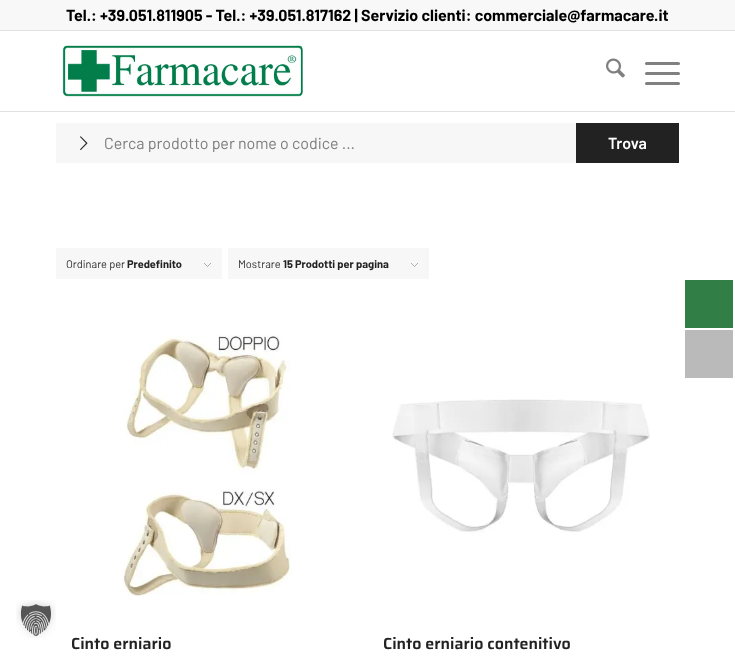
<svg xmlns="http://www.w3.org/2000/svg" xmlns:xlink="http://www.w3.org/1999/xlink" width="735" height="656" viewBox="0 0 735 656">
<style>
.cls-1{font:bold 16px Barlow;fill:#000000}
.cls-2{font:16px Barlow;fill:#7c7c7c}
.cls-3{font:600 16px Barlow;fill:#ffffff}
.cls-4{font:11px Barlow;fill:#2c2c2c}
.cls-5{font:bold 11px Barlow;fill:#222222}
.cls-6{font:600 16px Saira;fill:#222222}
</style>
<rect width="100%" height="100%" fill="#ffffff"/>
<rect fill="#f8f8f8" x="0" y="0" width="735" height="30"/>
<rect fill="#e1e1e1" x="0" y="30" width="735" height="1"/>
<rect fill="#e1e1e1" x="0" y="111" width="735" height="1"/>
<image xlink:href="image0.png" x="62" y="45" width="241" height="52"/>
<image xlink:href="image1.png" x="606" y="58" width="19" height="20"/>
<rect fill="#808080" x="645" y="72" width="35" height="3" rx="1.5"/>
<rect fill="#808080" x="645" y="62" width="35" height="3" rx="1.5"/>
<rect fill="#808080" x="645" y="82" width="35" height="3" rx="1.5"/>
<rect fill="#f7f7f7" x="56" y="123" width="520" height="40"/>
<image xlink:href="image2.png" x="80" y="136" width="8" height="14"/>
<rect fill="#222222" x="576" y="123" width="103" height="40"/>
<rect fill="#f7f7f7" x="56" y="248" width="166" height="31"/>
<image xlink:href="image3.png" x="204" y="263" width="7" height="4"/>
<rect fill="#f7f7f7" x="228" y="248" width="201" height="31"/>
<image xlink:href="image3.png" x="411" y="263" width="7" height="4"/>
<image xlink:href="image4.png" x="122" y="335" width="169" height="261"/>
<image xlink:href="image5.png" x="392" y="399" width="258" height="134"/>
<rect fill="#327e47" x="685" y="280" width="48" height="48"/>
<rect fill="#bababa" x="685" y="330" width="48" height="48"/>
<image xlink:href="image6.png" x="16" y="600" width="40" height="38"/>
<text class="cls-1" x="66" y="21">Tel.: +39.051.811905 - Tel.: +39.051.817162 | Servizio clienti: commerciale@farmacare.it</text>
<text class="cls-2" x="104" y="149">Cerca prodotto per nome o codice ...</text>
<text class="cls-3" x="608" y="149">Trova</text>
<text class="cls-4" x="66" y="268">Ordinare per</text>
<text class="cls-5" x="127" y="268">Predefinito</text>
<text class="cls-4" x="238" y="268">Mostrare</text>
<text class="cls-5" x="283" y="268">15 Prodotti per pagina</text>
<text class="cls-6" x="71" y="649">Cinto erniario</text>
<text class="cls-6" x="383" y="649">Cinto erniario contenitivo</text>
</svg>
